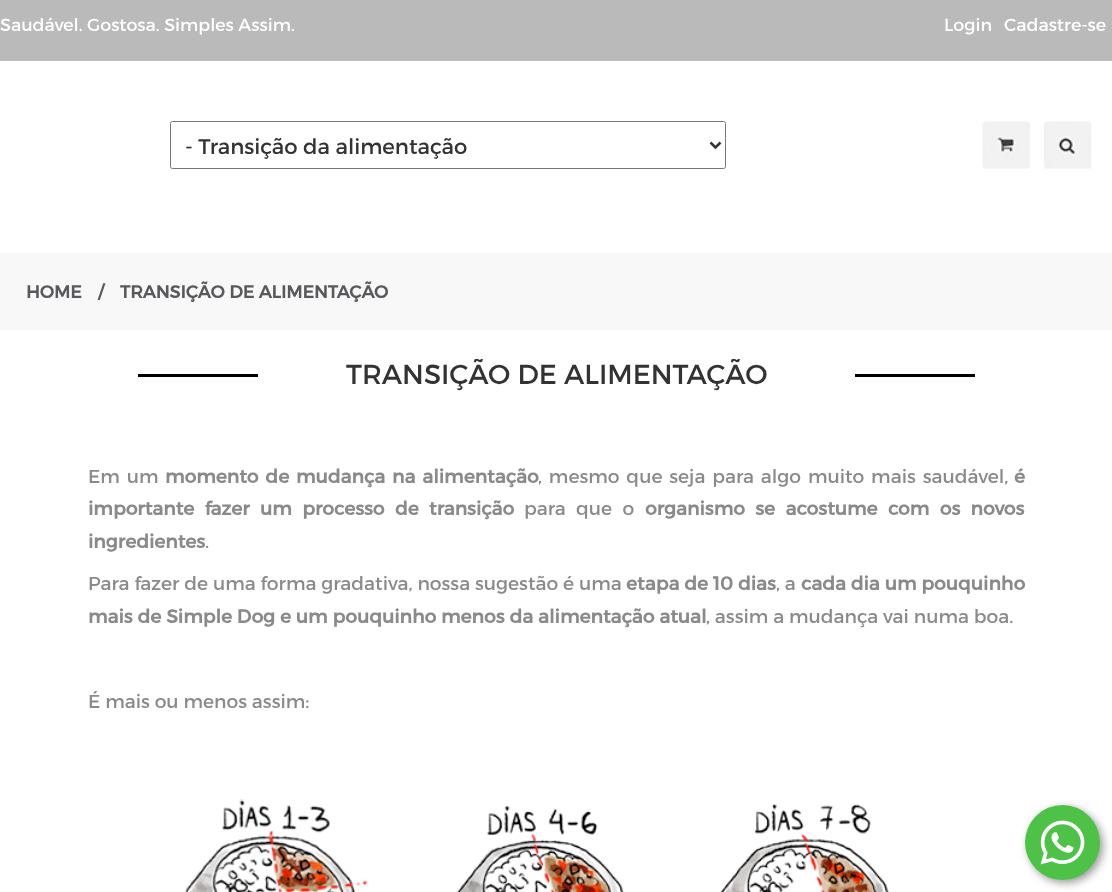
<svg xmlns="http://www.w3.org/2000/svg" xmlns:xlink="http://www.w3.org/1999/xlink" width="1112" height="892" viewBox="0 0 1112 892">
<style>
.cls-1{font:17.5px Montserrat;fill:#ffffff}
.cls-2{font:21.25px Montserrat;fill:#333333}
.cls-3{font:bold 17.5px Montserrat;fill:#58595c}
.cls-4{font:27.5px Montserrat;fill:#333333}
.cls-5{font:18.75px Montserrat;fill:#8a8a8b}
.cls-6{font:bold 18.75px Montserrat;fill:#8a8a8b}
</style>
<defs>
<clipPath id="clip1"><rect x="88" y="359" width="937" height="95"/></clipPath>
</defs>
<rect width="100%" height="100%" fill="#ffffff"/>
<rect fill="#bababa" x="0" y="0" width="1112" height="61"/>
<rect fill="none" stroke="#767676" x="170.5" y="121.5" width="555" height="47" rx="2"/>
<path fill="none" stroke="#333333" stroke-width="2.5" d="M710.5 142.5L715.5 147.5L720.5 142.5"/>
<image xlink:href="image0.png" x="982" y="121" width="48" height="48"/>
<image xlink:href="image1.png" x="1044" y="121" width="48" height="48"/>
<rect fill="#f8f8f8" x="0" y="253" width="1112" height="77"/>
<rect fill="#000000" x="138" y="374" width="837" height="3"/>
<rect fill="#ffffff" x="258" y="374" width="597" height="3"/>
<image xlink:href="image2.png" x="185" y="799" width="183" height="93"/>
<image xlink:href="image3.png" x="457" y="805" width="167" height="87"/>
<image xlink:href="image4.png" x="720" y="803" width="169" height="89"/>
<rect fill="#000000" fill-opacity="0.4" filter="blur(4px)" x="1028" y="808" width="75" height="75" rx="37.5"/>
<circle fill="#4dc247" cx="1062.5" cy="842.5" r="37.5"/>
<image xlink:href="image5.png" x="1040" y="820" width="45" height="45"/>
<text class="cls-1" x="0" y="31">Saudável. Gostosa. Simples Assim.</text>
<text class="cls-1" x="944" y="31">Login</text>
<text class="cls-1" x="1004" y="31">Cadastre-se</text>
<text class="cls-2" x="185" y="154">- Transição da alimentação</text>
<text class="cls-3" x="26" y="298">HOME</text>
<text class="cls-3" x="98" y="298">/</text>
<text class="cls-3" x="120" y="298">TRANSIÇÃO DE ALIMENTAÇÃO</text>
<g clip-path="url(#clip1)">
<text class="cls-4" x="346" y="384">TRANSIÇÃO DE ALIMENTAÇÃO</text>
</g>
<text class="cls-5" x="88" y="483" word-spacing="2">Em um</text>
<text class="cls-6" x="165" y="483" word-spacing="2">momento de mudança na alimentação</text>
<text class="cls-5" x="538" y="483" word-spacing="2">, mesmo que seja para algo muito mais saudável,</text>
<text class="cls-6" x="1014" y="483">é</text>
<text class="cls-6" x="88" y="515" word-spacing="5.5">importante fazer um processo de transição</text>
<text class="cls-5" x="524" y="515" word-spacing="5.5">para que o</text>
<text class="cls-6" x="645" y="515" word-spacing="5.5">organismo se acostume com os novos</text>
<text class="cls-6" x="88" y="548">ingredientes</text>
<text class="cls-5" x="205" y="548">.</text>
<text class="cls-5" x="88" y="590">Para fazer de uma forma gradativa, nossa sugestão é uma</text>
<text class="cls-6" x="626" y="590">etapa de 10 dias</text>
<text class="cls-5" x="776" y="590">, a</text>
<text class="cls-6" x="801" y="590">cada dia um pouquinho</text>
<text class="cls-6" x="88" y="623">mais de Simple Dog e um pouquinho menos da alimentação atual</text>
<text class="cls-5" x="706" y="623">, assim a mudança vai numa boa.</text>
<text class="cls-5" x="88" y="708">É mais ou menos assim:</text>
</svg>
